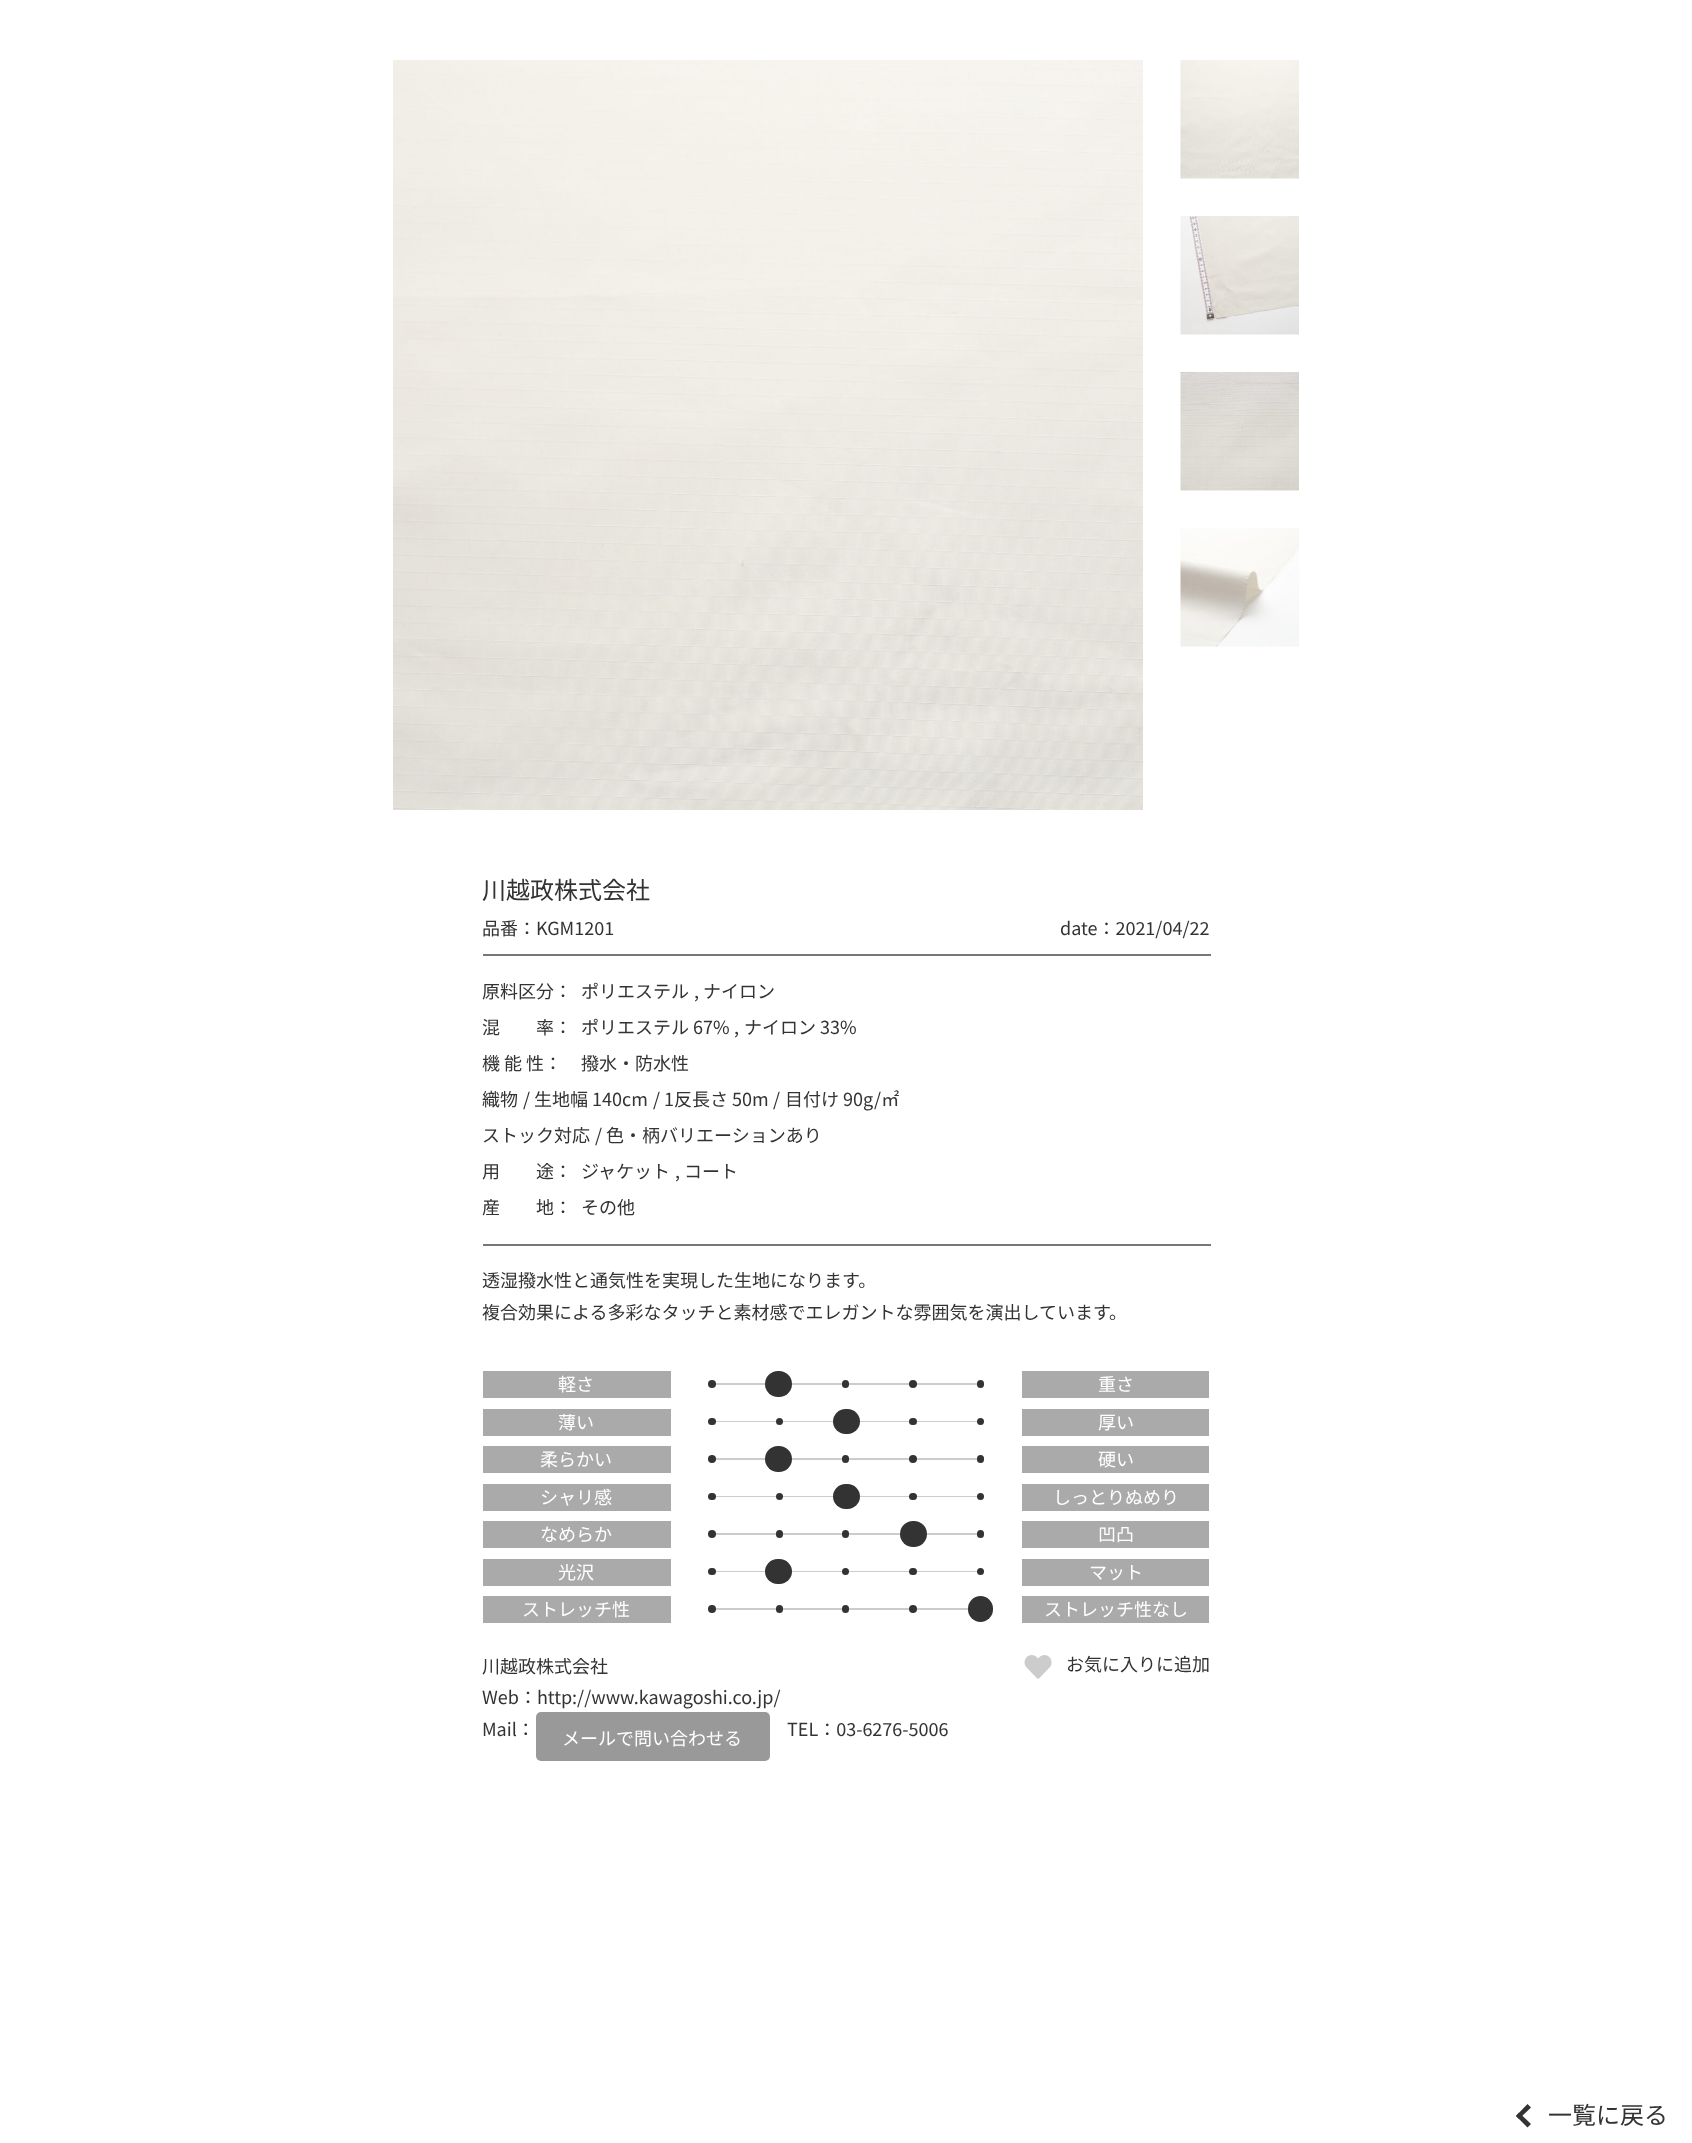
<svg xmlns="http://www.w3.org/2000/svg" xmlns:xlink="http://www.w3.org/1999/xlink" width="1692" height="2143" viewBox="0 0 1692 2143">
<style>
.cls-1{font:24px Noto Sans JP;fill:#333333}
.cls-2{font:18px Noto Sans JP;fill:#333333}
.cls-3{font:18px Noto Sans JP;fill:#ffffff}
</style>
<defs>
<linearGradient id="g1" gradientUnits="userSpaceOnUse" x1="846" y1="1368" x2="846" y2="1400"><stop offset="0" stop-color="#ffffff"/><stop offset="0.48" stop-color="#ffffff"/><stop offset="0.48" stop-color="#cccccc"/><stop offset="0.53" stop-color="#cccccc"/><stop offset="0.53" stop-color="#ffffff"/><stop offset="1" stop-color="#ffffff"/></linearGradient>
<linearGradient id="g2" gradientUnits="userSpaceOnUse" x1="846" y1="1406" x2="846" y2="1437"><stop offset="0" stop-color="#ffffff"/><stop offset="0.48" stop-color="#ffffff"/><stop offset="0.48" stop-color="#cccccc"/><stop offset="0.53" stop-color="#cccccc"/><stop offset="0.53" stop-color="#ffffff"/><stop offset="1" stop-color="#ffffff"/></linearGradient>
<linearGradient id="g3" gradientUnits="userSpaceOnUse" x1="846" y1="1443" x2="846" y2="1475"><stop offset="0" stop-color="#ffffff"/><stop offset="0.48" stop-color="#ffffff"/><stop offset="0.48" stop-color="#cccccc"/><stop offset="0.53" stop-color="#cccccc"/><stop offset="0.53" stop-color="#ffffff"/><stop offset="1" stop-color="#ffffff"/></linearGradient>
<linearGradient id="g4" gradientUnits="userSpaceOnUse" x1="846" y1="1481" x2="846" y2="1512"><stop offset="0" stop-color="#ffffff"/><stop offset="0.48" stop-color="#ffffff"/><stop offset="0.48" stop-color="#cccccc"/><stop offset="0.53" stop-color="#cccccc"/><stop offset="0.53" stop-color="#ffffff"/><stop offset="1" stop-color="#ffffff"/></linearGradient>
<linearGradient id="g5" gradientUnits="userSpaceOnUse" x1="846" y1="1518" x2="846" y2="1550"><stop offset="0" stop-color="#ffffff"/><stop offset="0.48" stop-color="#ffffff"/><stop offset="0.48" stop-color="#cccccc"/><stop offset="0.53" stop-color="#cccccc"/><stop offset="0.53" stop-color="#ffffff"/><stop offset="1" stop-color="#ffffff"/></linearGradient>
<linearGradient id="g6" gradientUnits="userSpaceOnUse" x1="846" y1="1556" x2="846" y2="1587"><stop offset="0" stop-color="#ffffff"/><stop offset="0.48" stop-color="#ffffff"/><stop offset="0.48" stop-color="#cccccc"/><stop offset="0.53" stop-color="#cccccc"/><stop offset="0.53" stop-color="#ffffff"/><stop offset="1" stop-color="#ffffff"/></linearGradient>
<linearGradient id="g7" gradientUnits="userSpaceOnUse" x1="846" y1="1593" x2="846" y2="1625"><stop offset="0" stop-color="#ffffff"/><stop offset="0.48" stop-color="#ffffff"/><stop offset="0.48" stop-color="#cccccc"/><stop offset="0.53" stop-color="#cccccc"/><stop offset="0.53" stop-color="#ffffff"/><stop offset="1" stop-color="#ffffff"/></linearGradient>
</defs>
<rect width="100%" height="100%" fill="#ffffff"/>
<image xlink:href="image0.png" x="393" y="60" width="750" height="750"/>
<image xlink:href="image1.png" x="1180" y="60" width="119" height="119"/>
<image xlink:href="image2.png" x="1180" y="216" width="119" height="119"/>
<image xlink:href="image3.png" x="1180" y="372" width="119" height="119"/>
<image xlink:href="image4.png" x="1180" y="528" width="119" height="119"/>
<rect fill="#777777" x="483" y="954" width="728" height="2"/>
<rect fill="#777777" x="483" y="1244" width="728" height="2"/>
<rect fill="#aaaaaa" x="483" y="1371" width="188" height="27"/>
<rect fill="url(#g1)" x="708" y="1383" width="276" height="2"/>
<circle fill="#333333" cx="712" cy="1384" r="4"/>
<rect fill="#333333" x="765" y="1371" width="27" height="26" rx="13"/>
<rect fill="#333333" x="842" y="1380" width="7" height="8" rx="3.5"/>
<circle fill="#333333" cx="913" cy="1384" r="4"/>
<rect fill="#333333" x="977" y="1380" width="7" height="8" rx="3.5"/>
<rect fill="#aaaaaa" x="1022" y="1371" width="187" height="27"/>
<rect fill="#aaaaaa" x="483" y="1409" width="188" height="27"/>
<rect fill="url(#g2)" x="708" y="1421" width="276" height="1"/>
<rect fill="#333333" x="708" y="1418" width="8" height="7" rx="3.5"/>
<circle fill="#333333" cx="779.5" cy="1421.5" r="3.5"/>
<rect fill="#333333" x="833" y="1409" width="27" height="25" rx="12.5"/>
<rect fill="#333333" x="909" y="1418" width="8" height="7" rx="3.5"/>
<circle fill="#333333" cx="980.5" cy="1421.5" r="3.5"/>
<rect fill="#aaaaaa" x="1022" y="1409" width="187" height="27"/>
<rect fill="#aaaaaa" x="483" y="1446" width="188" height="27"/>
<rect fill="url(#g3)" x="708" y="1458" width="276" height="2"/>
<circle fill="#333333" cx="712" cy="1459" r="4"/>
<rect fill="#333333" x="765" y="1446" width="27" height="26" rx="13"/>
<rect fill="#333333" x="842" y="1455" width="7" height="8" rx="3.5"/>
<circle fill="#333333" cx="913" cy="1459" r="4"/>
<rect fill="#333333" x="977" y="1455" width="7" height="8" rx="3.5"/>
<rect fill="#aaaaaa" x="1022" y="1446" width="187" height="27"/>
<rect fill="#aaaaaa" x="483" y="1484" width="188" height="27"/>
<rect fill="url(#g4)" x="708" y="1496" width="276" height="1"/>
<rect fill="#333333" x="708" y="1493" width="8" height="7" rx="3.5"/>
<circle fill="#333333" cx="779.5" cy="1496.5" r="3.5"/>
<rect fill="#333333" x="833" y="1484" width="27" height="25" rx="12.5"/>
<rect fill="#333333" x="909" y="1493" width="8" height="7" rx="3.5"/>
<circle fill="#333333" cx="980.5" cy="1496.5" r="3.5"/>
<rect fill="#aaaaaa" x="1022" y="1484" width="187" height="27"/>
<rect fill="#aaaaaa" x="483" y="1521" width="188" height="27"/>
<rect fill="url(#g5)" x="708" y="1533" width="276" height="2"/>
<circle fill="#333333" cx="712" cy="1534" r="4"/>
<rect fill="#333333" x="776" y="1530" width="7" height="8" rx="3.5"/>
<rect fill="#333333" x="842" y="1530" width="7" height="8" rx="3.5"/>
<rect fill="#333333" x="900" y="1521" width="27" height="26" rx="13"/>
<rect fill="#333333" x="977" y="1530" width="7" height="8" rx="3.5"/>
<rect fill="#aaaaaa" x="1022" y="1521" width="187" height="27"/>
<rect fill="#aaaaaa" x="483" y="1559" width="188" height="27"/>
<rect fill="url(#g6)" x="708" y="1571" width="276" height="1"/>
<rect fill="#333333" x="708" y="1568" width="8" height="7" rx="3.5"/>
<rect fill="#333333" x="765" y="1559" width="27" height="25" rx="12.5"/>
<circle fill="#333333" cx="845.5" cy="1571.5" r="3.5"/>
<rect fill="#333333" x="909" y="1568" width="8" height="7" rx="3.5"/>
<circle fill="#333333" cx="980.5" cy="1571.5" r="3.5"/>
<rect fill="#aaaaaa" x="1022" y="1559" width="187" height="27"/>
<rect fill="#aaaaaa" x="483" y="1596" width="188" height="27"/>
<rect fill="url(#g7)" x="708" y="1608" width="276" height="2"/>
<circle fill="#333333" cx="712" cy="1609" r="4"/>
<rect fill="#333333" x="776" y="1605" width="7" height="8" rx="3.5"/>
<rect fill="#333333" x="842" y="1605" width="7" height="8" rx="3.5"/>
<circle fill="#333333" cx="913" cy="1609" r="4"/>
<rect fill="#333333" x="968" y="1596" width="25" height="26" rx="12.5"/>
<rect fill="#aaaaaa" x="1022" y="1596" width="187" height="27"/>
<rect fill="#999999" x="536" y="1712" width="234" height="49" rx="5"/>
<image xlink:href="image5.png" x="1024" y="1655" width="28" height="24"/>
<path fill="#333333" d="M1516 2116L1527.5 2104L1531 2107.5L1519 2119Z"/>
<path fill="#333333" d="M1516 2116L1519 2112.5L1531 2124L1527.5 2127.5Z"/>
<text class="cls-1" x="482" y="899">川越政株式会社</text>
<text class="cls-2" x="482" y="935">品番：KGM1201</text>
<text class="cls-2" x="1060" y="935">date：2021/04/22</text>
<text class="cls-2" x="482" y="998">原料区分：</text>
<text class="cls-2" x="581" y="998">ポリエステル</text>
<text class="cls-2" x="694" y="998">,</text>
<text class="cls-2" x="703" y="998">ナイロン</text>
<text class="cls-2" x="482" y="1034">混　　率：</text>
<text class="cls-2" x="581" y="1034">ポリエステル 67%</text>
<text class="cls-2" x="734" y="1034">,</text>
<text class="cls-2" x="744" y="1034">ナイロン 33%</text>
<text class="cls-2" x="482" y="1070">機 能 性：</text>
<text class="cls-2" x="581" y="1070">撥水・防水性</text>
<text class="cls-2" x="482" y="1106">織物</text>
<text class="cls-2" x="523" y="1106">/</text>
<text class="cls-2" x="534" y="1106">生地幅 140cm</text>
<text class="cls-2" x="653" y="1106">/</text>
<text class="cls-2" x="664" y="1106">1反長さ 50m</text>
<text class="cls-2" x="773" y="1106">/</text>
<text class="cls-2" x="785" y="1106">目付け 90g/㎡</text>
<text class="cls-2" x="482" y="1142">ストック対応</text>
<text class="cls-2" x="595" y="1142">/</text>
<text class="cls-2" x="606" y="1142">色・柄バリエーションあり</text>
<text class="cls-2" x="482" y="1178">用　　途：</text>
<text class="cls-2" x="581" y="1178">ジャケット</text>
<text class="cls-2" x="675" y="1178">,</text>
<text class="cls-2" x="684" y="1178">コート</text>
<text class="cls-2" x="482" y="1214">産　　地：</text>
<text class="cls-2" x="581" y="1214">その他</text>
<text class="cls-2"><tspan x="482" y="1287">透湿撥水性と通気性を実現した生地になります。</tspan><tspan x="482" y="1319">複合効果による多彩なタッチと素材感でエレガントな雰囲気を演出しています。</tspan></text>
<text class="cls-3" x="558" y="1391">軽さ</text>
<text class="cls-3" x="1098" y="1391">重さ</text>
<text class="cls-3" x="558" y="1429">薄い</text>
<text class="cls-3" x="1098" y="1429">厚い</text>
<text class="cls-3" x="540" y="1466">柔らかい</text>
<text class="cls-3" x="1098" y="1466">硬い</text>
<text class="cls-3" x="540" y="1504">シャリ感</text>
<text class="cls-3" x="1053" y="1504">しっとりぬめり</text>
<text class="cls-3" x="540" y="1541">なめらか</text>
<text class="cls-3" x="1098" y="1541">凹凸</text>
<text class="cls-3" x="558" y="1579">光沢</text>
<text class="cls-3" x="1089" y="1579">マット</text>
<text class="cls-3" x="522" y="1616">ストレッチ性</text>
<text class="cls-3" x="1044" y="1616">ストレッチ性なし</text>
<text class="cls-2"><tspan x="482" y="1673">川越政株式会社</tspan><tspan x="482" y="1704">Web：http://www.kawagoshi.co.jp/</tspan><tspan x="482" y="1736">Mail：</tspan></text>
<text class="cls-3" x="562" y="1745">メールで問い合わせる</text>
<text class="cls-2" x="787" y="1736">TEL：03-6276-5006</text>
<text class="cls-2" x="1066" y="1671">お気に入りに追加</text>
<text class="cls-1" x="1548" y="2124">一覧に戻る</text>
</svg>
